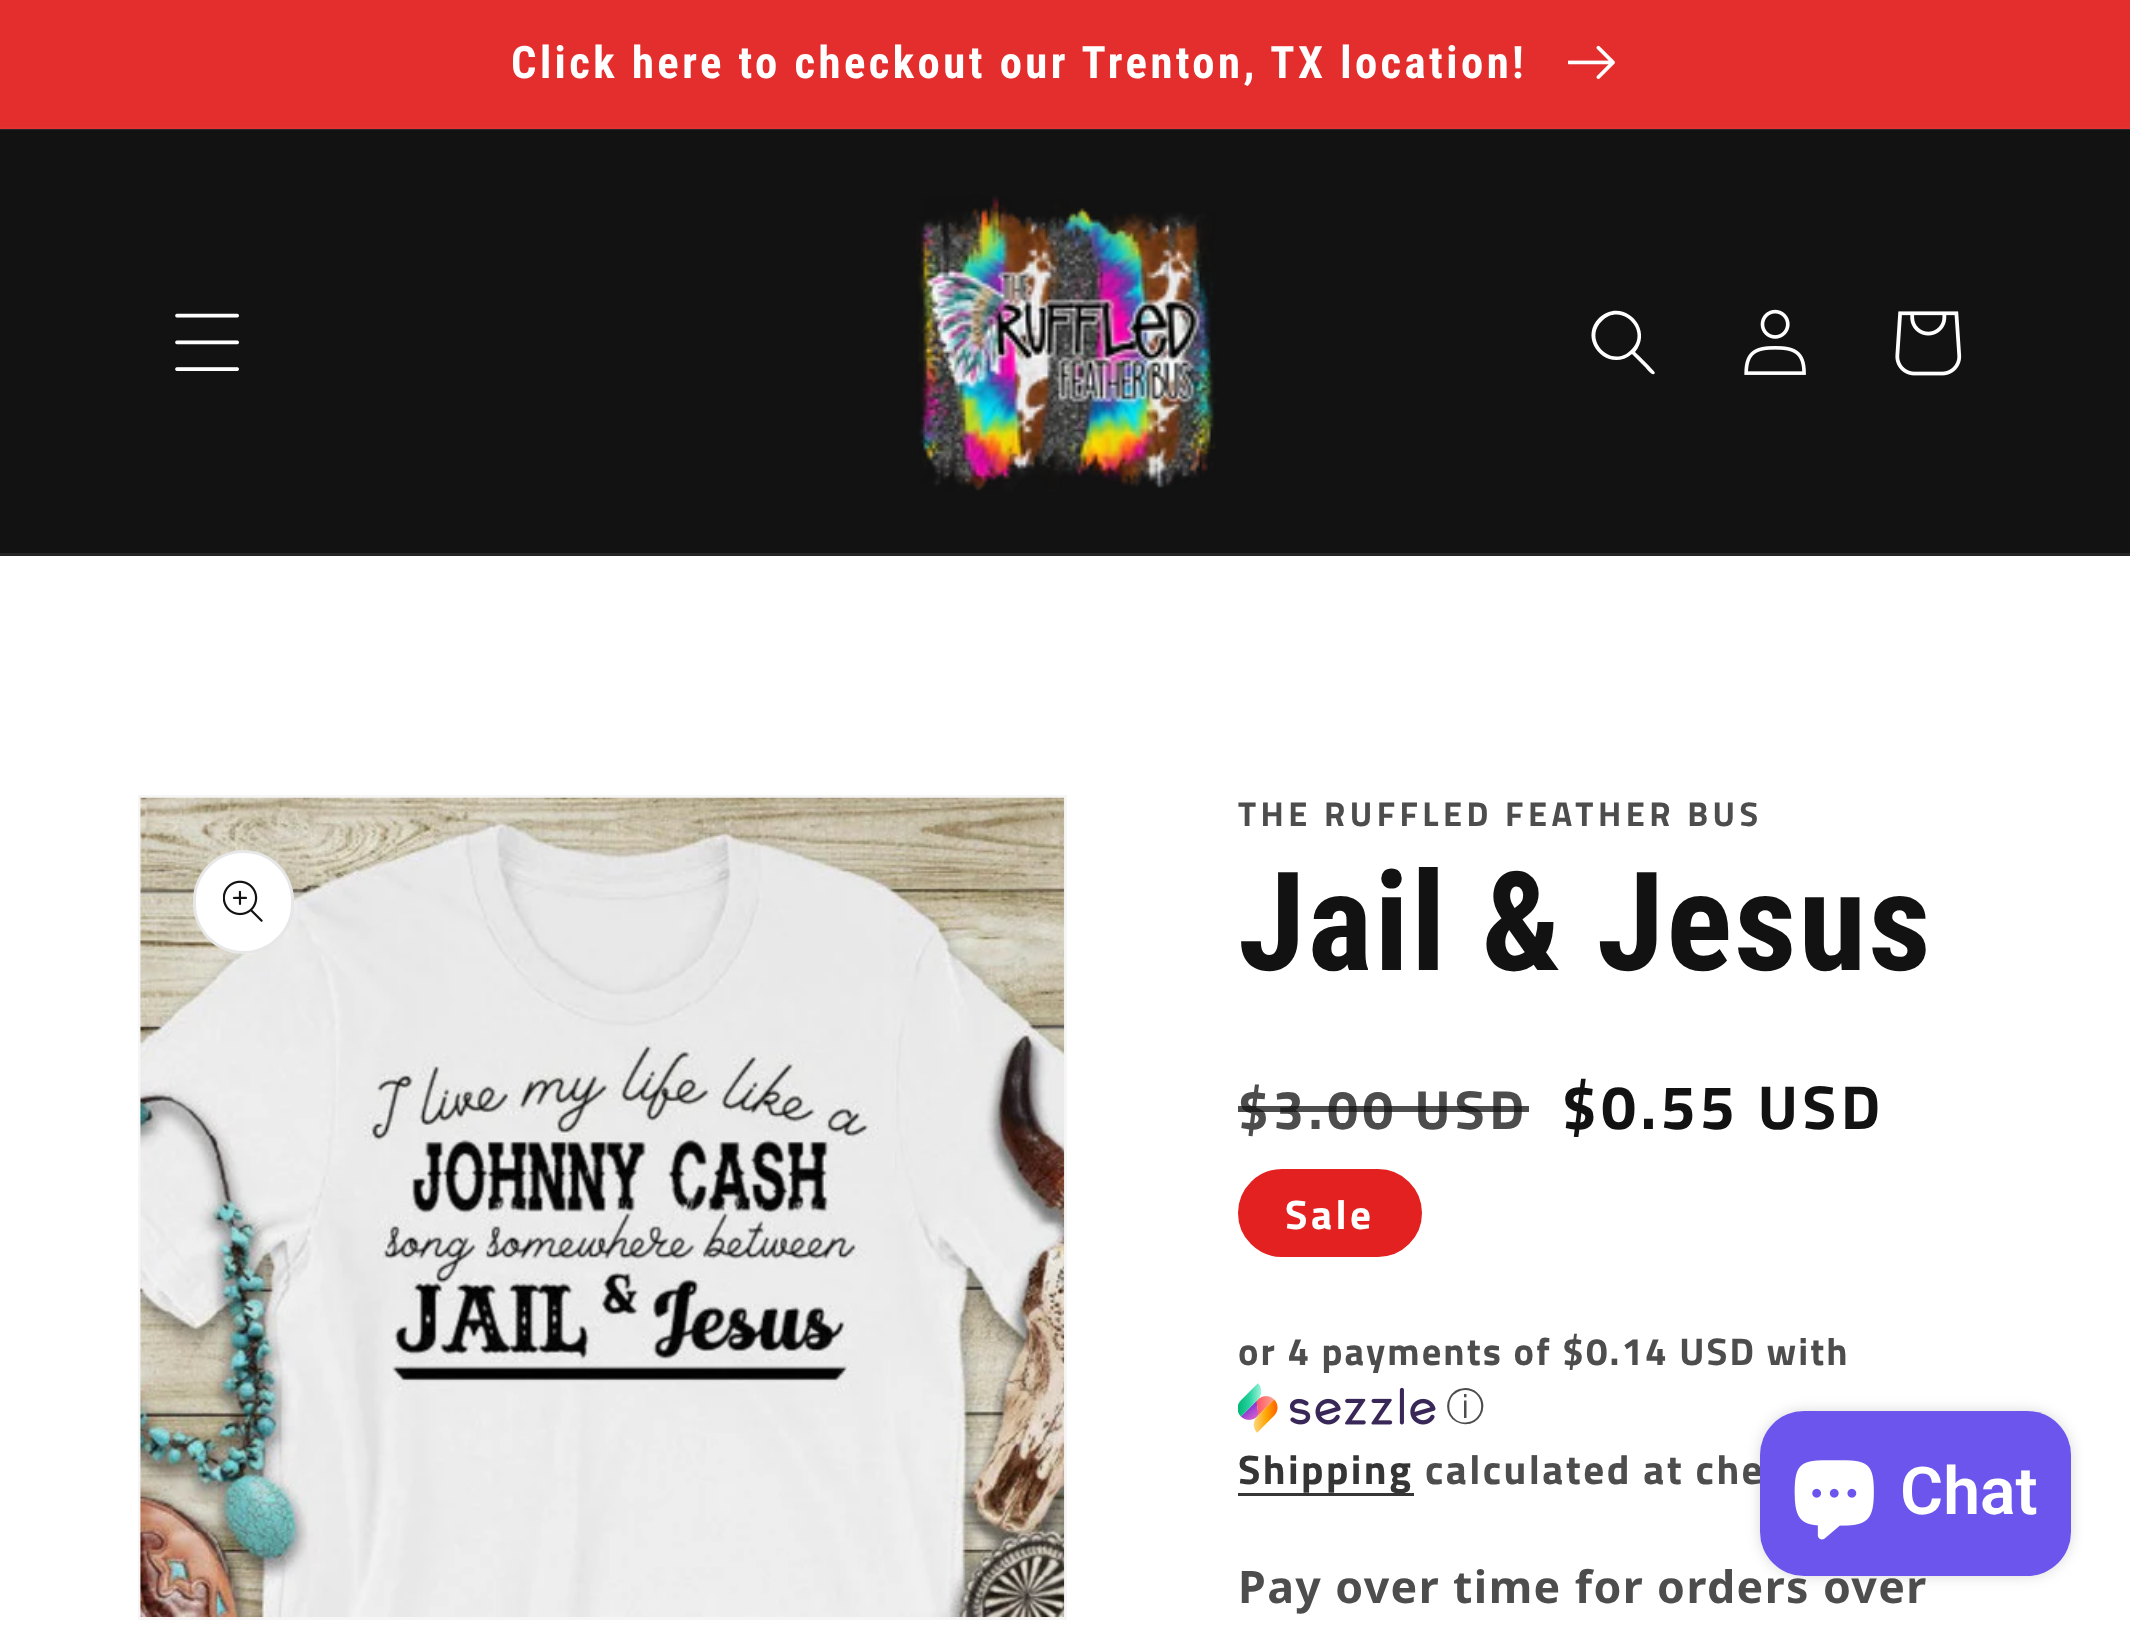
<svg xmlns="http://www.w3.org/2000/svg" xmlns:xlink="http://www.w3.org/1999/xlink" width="2130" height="1631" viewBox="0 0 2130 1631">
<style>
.cls-1{font:bold 44.7px Roboto Condensed;letter-spacing:3.45px;fill:#ffffff}
.cls-2{font:bold 34.4px Titillium Web;letter-spacing:4.5px;fill:#4d4d4d}
.cls-3{font:bold 137.5px Roboto Condensed;letter-spacing:2.05px;fill:#121212}
.cls-4{font:bold 55px Titillium Web;letter-spacing:4.5px;fill:#4d4d4d}
.cls-5{font:bold 62px Titillium Web;letter-spacing:4.5px;fill:#121212}
.cls-6{font:bold 41.25px Titillium Web;letter-spacing:3.45px;fill:#ffffff}
.cls-7{font:bold 38.5px Titillium Web;letter-spacing:2.05px;fill:#4d4d4d}
.cls-8{font:500 38.5px WenQuanYi Zen Hei;letter-spacing:2.05px;fill:#4d4d4d}
.cls-9{font:bold 41.25px Titillium Web;letter-spacing:2.4px;fill:#353535}
.cls-10{font:bold 41.25px Titillium Web;letter-spacing:2.4px;fill:#4d4d4d}
.cls-11{font:bold 44.7px Noto Sans;letter-spacing:1.4px;fill:#4d4d4d}
.cls-12{font:600 66px Roboto;fill:#ffffff}
</style>
<rect width="100%" height="100%" fill="#ffffff"/>
<rect fill="#e43332" x="0" y="127" width="2130" height="2"/>
<rect fill="#e32e2d" x="0" y="0" width="2130" height="127"/>
<image xlink:href="image0.png" x="1568" y="45" width="47" height="34"/>
<rect fill="#121212" x="0" y="130" width="2130" height="423"/>
<rect fill="#252525" x="0" y="129" width="2130" height="1"/>
<rect fill="#252525" x="0" y="553" width="2130" height="3"/>
<image xlink:href="image1.png" x="175" y="313" width="64" height="58"/>
<image xlink:href="image2.png" x="916" y="195" width="301" height="296"/>
<path fill="#ffffff" fill-rule="evenodd" d="M1631 350C1612 370 1582 340 1602 321C1621 301 1651 331 1631 350ZM1632 354C1608 374 1577 340 1599 318C1622 296 1655 328 1635 352C1637 354 1655 371 1655 373L1654 374C1652 376 1646 368 1645 367Z"/>
<image xlink:href="image3.png" x="1744" y="309" width="62" height="66"/>
<image xlink:href="image4.png" x="1895" y="311" width="67" height="65"/>
<rect fill="none" stroke="#f6f6f6" stroke-width="3" x="139.5" y="796.5" width="926" height="822"/>
<image xlink:href="image5.png" x="140" y="797" width="925" height="820"/>
<rect fill="#ffffff" x="193" y="850" width="101" height="104" rx="50.5"/>
<rect fill="none" stroke="#121212" stroke-opacity="0.1" stroke-width="3" x="194.5" y="851.5" width="98" height="101" rx="49"/>
<image xlink:href="image6.png" x="223" y="880" width="40" height="42"/>
<rect fill="#e22120" stroke="#e22120" stroke-width="3" x="1239.5" y="1170.5" width="181" height="85" rx="42.5"/>
<image xlink:href="image7.png" x="1238" y="1383" width="198" height="50"/>
<rect fill="#363636" x="1238" y="1493" width="176" height="3"/>
<rect fill="#000000" fill-opacity="0.15" filter="blur(7px)" x="1760" y="1411" width="311" height="165" rx="44"/>
<text class="cls-1" x="511" y="78">Click here to checkout our Trenton, TX location!</text>
<text class="cls-2" x="1238" y="826">THE RUFFLED FEATHER BUS</text>
<text class="cls-3" x="1238" y="970">Jail &amp; Jesus</text>
<text class="cls-4" x="1238" y="1129">$3.00 USD</text>
<rect fill="#121212" fill-opacity="0.75" x="1238" y="1106" width="291" height="6"/>
<text class="cls-5" x="1562" y="1129">$0.55 USD</text>
<text class="cls-6" x="1285" y="1229">Sale</text>
<text class="cls-7" x="1238" y="1365">or 4 payments of $0.14 USD with</text>
<text class="cls-8" x="1446" y="1420">ⓘ</text>
<text class="cls-9" x="1238" y="1484">Shipping</text>
<text class="cls-10" x="1425" y="1484">calculated at che</text>
<text class="cls-11" x="1238" y="1603">Pay over time for orders over</text>
<rect fill="#6c55ec" x="1760" y="1411" width="311" height="165" rx="44"/>
<image xlink:href="image8.png" x="1794" y="1460" width="80" height="80"/>
<text class="cls-12" x="1900" y="1514">Chat</text>
</svg>
